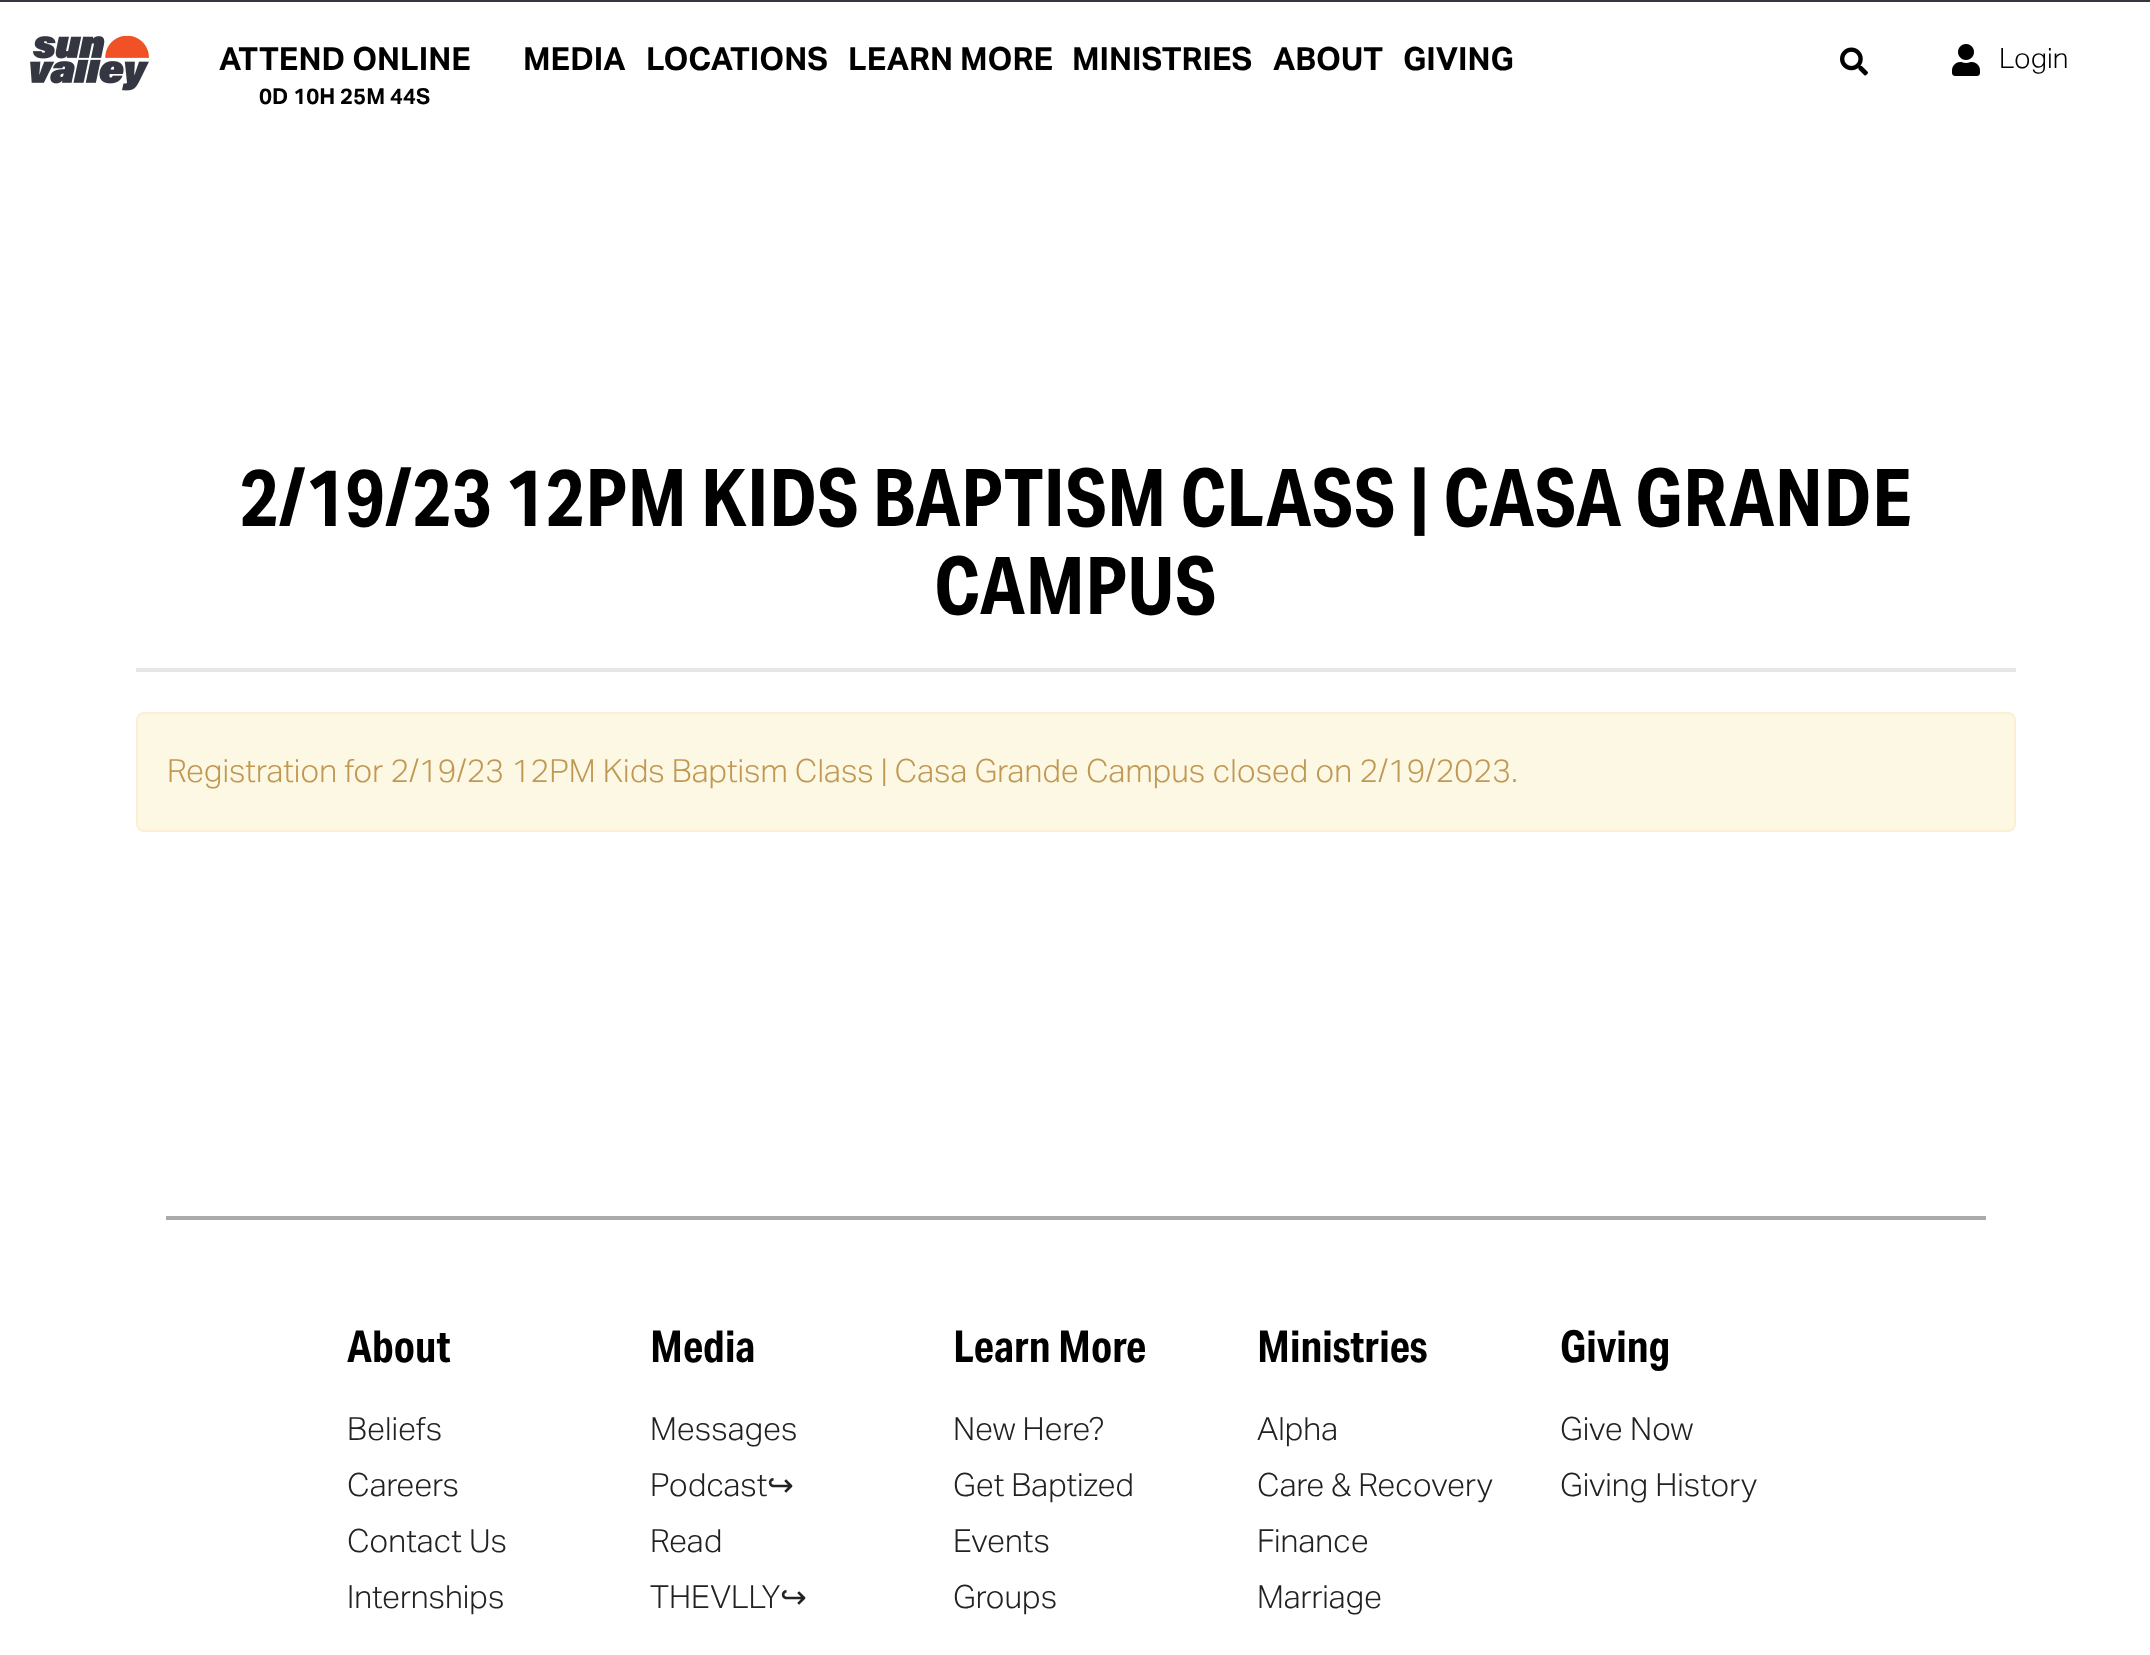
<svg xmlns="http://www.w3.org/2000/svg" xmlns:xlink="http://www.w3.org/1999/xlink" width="2150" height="1655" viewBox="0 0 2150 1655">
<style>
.cls-1{font:bold 32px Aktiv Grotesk;fill:#000000}
.cls-2{font:bold 22px Aktiv Grotesk;fill:#000000}
.cls-3{font:300 28px Aktiv Grotesk;fill:#000000}
.cls-4{font:bold 80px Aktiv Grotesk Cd;fill:#000000}
.cls-5{font:300 32px Aktiv Grotesk;fill:#c09853}
.cls-6{font:bold 44px Aktiv Grotesk Cd;fill:#000000}
.cls-7{font:300 32px Aktiv Grotesk;fill:#222222}
.cls-8{font:32px DejaVu Sans;fill:#222222}
</style>
<rect width="100%" height="100%" fill="#ffffff"/>
<rect fill="#343741" x="0" y="0" width="2150" height="2"/>
<image xlink:href="image0.png" x="30" y="36" width="119" height="55"/>
<image xlink:href="image1.png" x="1840" y="47" width="28" height="29"/>
<image xlink:href="image2.png" x="1952" y="44" width="28" height="32"/>
<rect fill="#e6e6e6" x="136" y="668" width="1880" height="4"/>
<rect fill="#fcf8e3" stroke="#fbeed5" stroke-width="2" x="137" y="713" width="1878" height="118" rx="7"/>
<rect fill="#aaaaaa" x="166" y="1216" width="1820" height="4"/>
<text class="cls-1" x="219" y="70">ATTEND ONLINE</text>
<text class="cls-2" x="259" y="104">0D 10H 25M 44S</text>
<text class="cls-1" x="523" y="70">MEDIA</text>
<text class="cls-1" x="646" y="70">LOCATIONS</text>
<text class="cls-1" x="848" y="70">LEARN MORE</text>
<text class="cls-1" x="1072" y="70">MINISTRIES</text>
<text class="cls-1" x="1273" y="70">ABOUT</text>
<text class="cls-1" x="1403" y="70">GIVING</text>
<text class="cls-3" x="1999" y="68">Login</text>
<text class="cls-4" x="239" y="526">2/19/23 12PM KIDS BAPTISM CLASS | CASA GRANDE</text>
<text class="cls-4" x="934" y="614">CAMPUS</text>
<text class="cls-5" x="167" y="782">Registration for 2/19/23 12PM Kids Baptism Class | Casa Grande Campus closed on 2/19/2023.</text>
<text class="cls-6" x="347" y="1362">About</text>
<text class="cls-7"><tspan x="347" y="1440">Beliefs</tspan><tspan x="347" y="1496">Careers</tspan><tspan x="347" y="1552">Contact Us</tspan><tspan x="347" y="1608">Internships</tspan></text>
<text class="cls-6" x="650" y="1362">Media</text>
<text class="cls-7"><tspan x="650" y="1440">Messages</tspan><tspan x="650" y="1496">Podcast</tspan></text>
<text class="cls-8" x="767" y="1496">↪</text>
<text class="cls-7"><tspan x="650" y="1552">Read</tspan><tspan x="650" y="1608">THEVLLY</tspan></text>
<text class="cls-8" x="780" y="1608">↪</text>
<text class="cls-6" x="953" y="1362">Learn More</text>
<text class="cls-7"><tspan x="953" y="1440">New Here?</tspan><tspan x="953" y="1496">Get Baptized</tspan><tspan x="953" y="1552">Events</tspan><tspan x="953" y="1608">Groups</tspan></text>
<text class="cls-6" x="1257" y="1362">Ministries</text>
<text class="cls-7"><tspan x="1257" y="1440">Alpha</tspan><tspan x="1257" y="1496">Care &amp; Recovery</tspan><tspan x="1257" y="1552">Finance</tspan><tspan x="1257" y="1608">Marriage</tspan></text>
<text class="cls-6" x="1560" y="1362">Giving</text>
<text class="cls-7"><tspan x="1560" y="1440">Give Now</tspan><tspan x="1560" y="1496">Giving History</tspan></text>
</svg>
